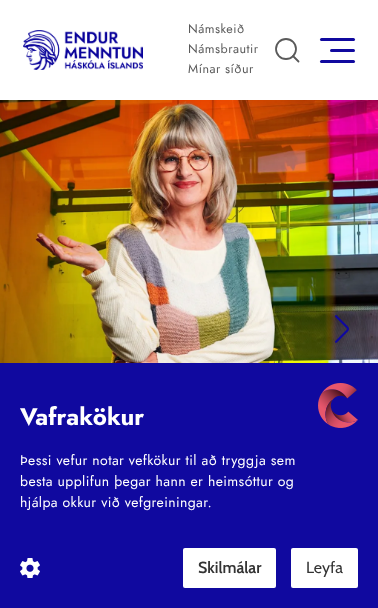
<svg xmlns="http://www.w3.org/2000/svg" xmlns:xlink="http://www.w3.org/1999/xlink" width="378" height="608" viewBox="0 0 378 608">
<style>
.cls-1{font:12.5px Jost;letter-spacing:0.5px;fill:#5a5a5a}
.cls-2{font:bold 24px Jost;fill:#ffffff}
.cls-3{font:14px Jost;letter-spacing:0.4px;fill:#ffffff}
.cls-4{font:600 16px Cabin;fill:#333333}
.cls-5{font:16px Cabin;fill:#333333}
</style>
<rect width="100%" height="100%" fill="#ffffff"/>
<image xlink:href="image0.png" x="23" y="30" width="120" height="40"/>
<circle fill="none" stroke="#5a5a5a" stroke-width="1.8" cx="286" cy="49" r="10"/>
<path fill="none" stroke="#5a5a5a" stroke-width="1.8" stroke-linecap="round" stroke-linejoin="round" d="M298.5 61.5L293 56"/>
<rect fill="#10099f" x="320" y="38" width="35" height="3" rx="1.5"/>
<rect fill="#10099f" x="330" y="49" width="25" height="3" rx="1.5"/>
<rect fill="#10099f" x="320" y="60" width="35" height="3" rx="1.5"/>
<image xlink:href="image1.png" x="0" y="100" width="378" height="263"/>
<image xlink:href="image2.png" x="335" y="315" width="14" height="28"/>
<rect fill="#10099f" x="0" y="363" width="378" height="245"/>
<image xlink:href="image3.png" x="318" y="383" width="40" height="45"/>
<image xlink:href="image4.png" x="20" y="558" width="20" height="20"/>
<rect fill="#ffffff" x="183" y="548" width="93" height="40" rx="2"/>
<rect fill="#ffffff" x="291" y="548" width="67" height="40" rx="2"/>
<text class="cls-1"><tspan x="188" y="33">Námskeið</tspan><tspan x="188" y="53">Námsbrautir</tspan><tspan x="188" y="73">Mínar síður</tspan></text>
<text class="cls-2" x="20" y="425">Vafrakökur</text>
<text class="cls-3"><tspan x="20" y="465">Þessi vefur notar vefkökur til að tryggja sem</tspan><tspan x="20" y="486">besta upplifun þegar hann er heimsóttur og</tspan><tspan x="20" y="507">hjálpa okkur við vefgreiningar.</tspan></text>
<text class="cls-4" x="198" y="573">Skilmálar</text>
<text class="cls-5" x="306" y="573">Leyfa</text>
</svg>
